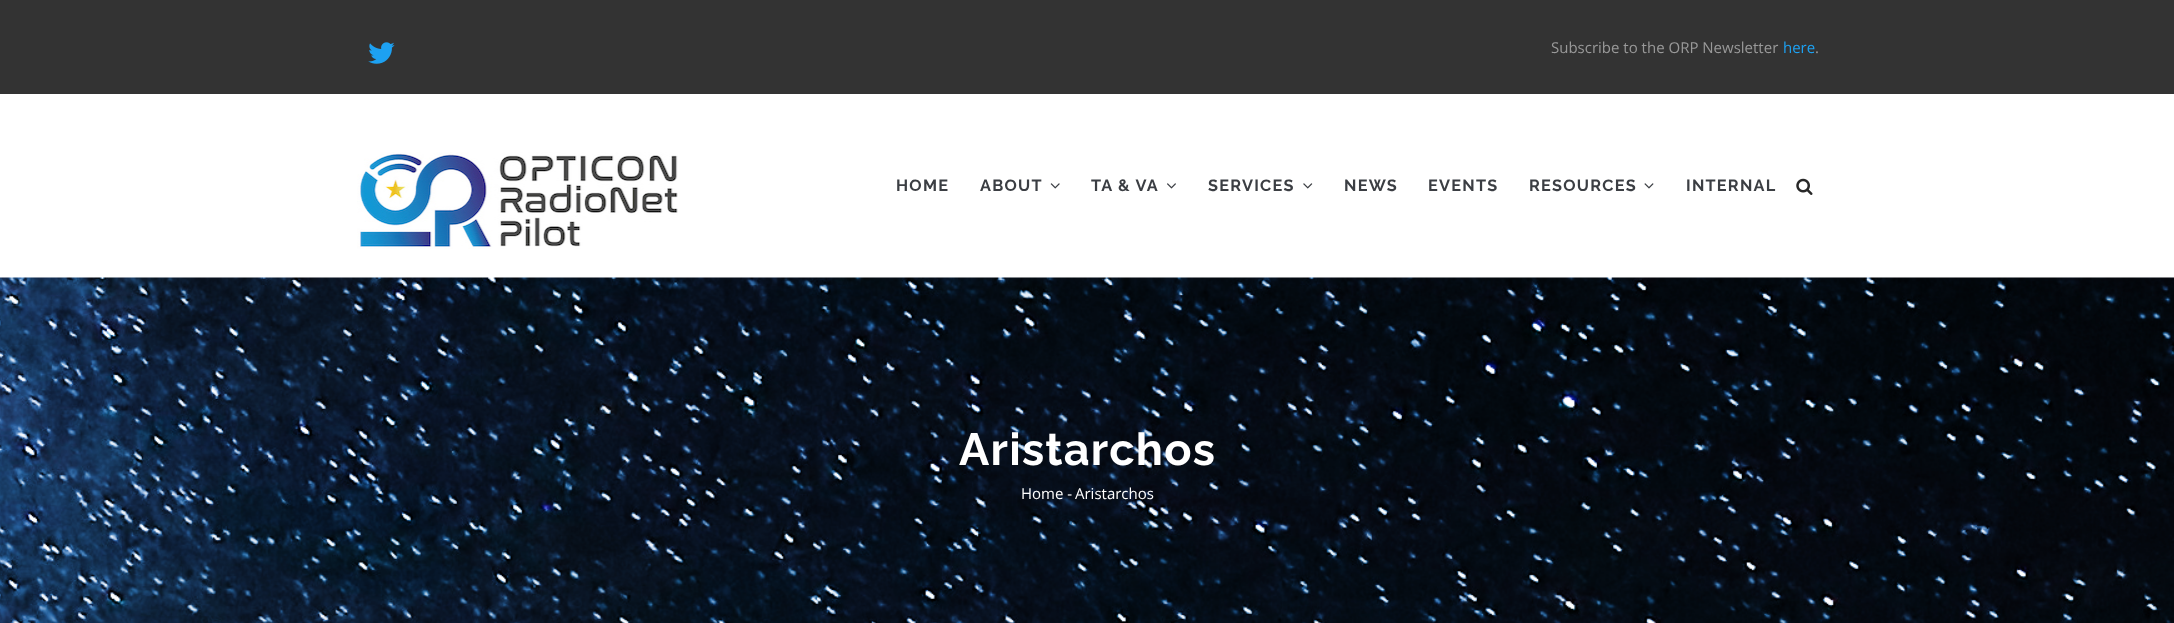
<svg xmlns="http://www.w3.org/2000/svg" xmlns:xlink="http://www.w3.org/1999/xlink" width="2174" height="623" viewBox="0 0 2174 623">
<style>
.cls-1{font:15px Open Sans;fill:#999999}
.cls-2{font:15px Open Sans;fill:#1da1f2}
.cls-3{font:bold 16.25px Raleway;letter-spacing:1.25px;fill:#3b3e43}
.cls-4{font:bold 45px Raleway;letter-spacing:1.25px;fill:#ffffff}
.cls-5{font:15px Open Sans;fill:#ffffff}
</style>
<rect width="100%" height="100%" fill="#ffffff"/>
<rect fill="#333333" x="0" y="0" width="2174" height="94"/>
<image xlink:href="image0.png" x="368" y="42" width="27" height="22"/>
<image xlink:href="image1.png" x="357" y="152" width="321" height="97"/>
<image xlink:href="image2.png" x="1050" y="183" width="10" height="6"/>
<image xlink:href="image3.png" x="1167" y="183" width="9" height="6"/>
<image xlink:href="image4.png" x="1303" y="183" width="10" height="6"/>
<image xlink:href="image5.png" x="1644" y="183" width="10" height="6"/>
<image xlink:href="image6.png" x="1796" y="178" width="17" height="17"/>
<image xlink:href="image7.png" x="0" y="277" width="2174" height="346"/>
<text class="cls-1" x="1551" y="53">Subscribe to the ORP Newsletter</text>
<text class="cls-2" x="1783" y="53">here</text>
<text class="cls-1" x="1815" y="53">.</text>
<text class="cls-3" x="896" y="191">HOME</text>
<text class="cls-3" x="980" y="191">ABOUT</text>
<text class="cls-3" x="1091" y="191">TA &amp; VA</text>
<text class="cls-3" x="1208" y="191">SERVICES</text>
<text class="cls-3" x="1344" y="191">NEWS</text>
<text class="cls-3" x="1428" y="191">EVENTS</text>
<text class="cls-3" x="1529" y="191">RESOURCES</text>
<text class="cls-3" x="1686" y="191">INTERNAL</text>
<text class="cls-4" x="959" y="465">Aristarchos</text>
<text class="cls-5" x="1021" y="499">Home -</text>
<text class="cls-5" x="1075" y="499">Aristarchos</text>
</svg>
